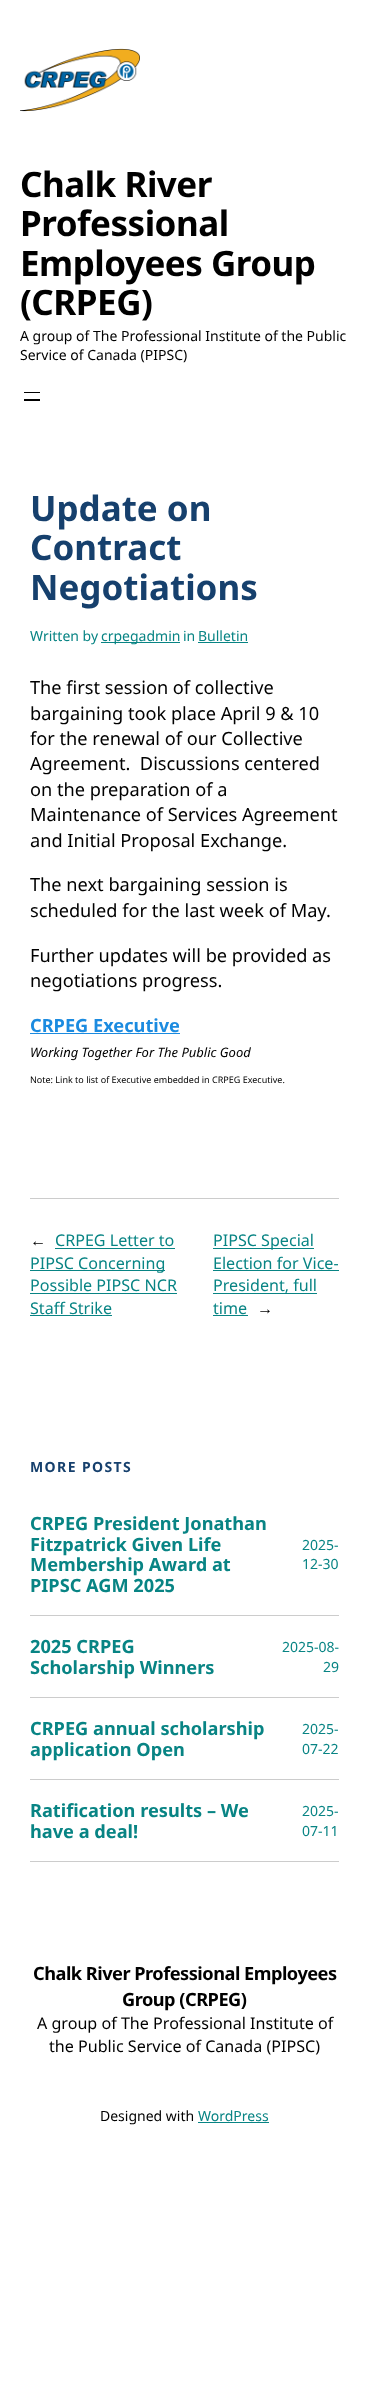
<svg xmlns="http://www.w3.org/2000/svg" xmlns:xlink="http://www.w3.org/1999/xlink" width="369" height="2384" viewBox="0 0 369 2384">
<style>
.cls-1{font:bold 35px Noto Sans;letter-spacing:-0.5px;fill:#000000}
.cls-2{font:14px Noto Sans;fill:#000000}
.cls-3{font:bold 35px Noto Sans;fill:#16406d}
.cls-4{font:14px Noto Sans;fill:#088484}
.cls-5{font:18.2px Noto Sans;fill:#000000}
.cls-6{font:bold 18.2px Noto Sans;fill:#1b8be0}
.cls-7{font:italic 13px Noto Sans;fill:#000000}
.cls-8{font:9px Noto Sans;fill:#000000}
.cls-9{font:16.1px Liberation Sans;fill:#000000}
.cls-10{font:16.1px Noto Sans;fill:#088484}
.cls-11{font:bold 14px Noto Sans;letter-spacing:1.4px;fill:#16406d}
.cls-12{font:bold 18.2px Noto Sans;fill:#088484}
.cls-13{font:bold 18.2px Noto Sans;letter-spacing:-0.5px;fill:#000000}
.cls-14{font:16.1px Noto Sans;fill:#000000}
</style>
<rect width="100%" height="100%" fill="#ffffff"/>
<image xlink:href="image0.png" x="20" y="48" width="120" height="64"/>
<rect fill="#000000" x="24" y="392" width="16" height="1"/>
<rect fill="#000000" x="24" y="399" width="16" height="2"/>
<rect fill="#088484" x="101" y="642" width="79" height="1"/>
<rect fill="#088484" x="198" y="642" width="50" height="1"/>
<rect fill="#1b8be0" x="30" y="1033" width="150" height="1"/>
<rect fill="#cccccc" x="30" y="1198" width="309" height="1"/>
<rect fill="#088484" x="55" y="1248" width="120" height="1"/>
<rect fill="#088484" x="30" y="1270" width="135" height="1"/>
<rect fill="#088484" x="30" y="1293" width="147" height="1"/>
<rect fill="#088484" x="30" y="1315" width="82" height="1"/>
<rect fill="#088484" x="213" y="1248" width="101" height="1"/>
<rect fill="#088484" x="213" y="1270" width="126" height="1"/>
<rect fill="#088484" x="213" y="1293" width="104" height="1"/>
<rect fill="#088484" x="213" y="1315" width="35" height="1"/>
<rect fill="#cccccc" x="30" y="1615" width="309" height="1"/>
<rect fill="#cccccc" x="30" y="1697" width="309" height="1"/>
<rect fill="#cccccc" x="30" y="1779" width="309" height="1"/>
<rect fill="#cccccc" x="30" y="1861" width="309" height="1"/>
<rect fill="#088484" x="198" y="2122" width="71" height="1"/>
<text class="cls-1"><tspan x="20" y="197">Chalk River</tspan><tspan x="20" y="236">Professional</tspan><tspan x="20" y="276">Employees Group</tspan><tspan x="20" y="315">(CRPEG)</tspan></text>
<text class="cls-2"><tspan x="20" y="341">A group of The Professional Institute of the Public</tspan><tspan x="20" y="360">Service of Canada (PIPSC)</tspan></text>
<text class="cls-3"><tspan x="30" y="521">Update on</tspan><tspan x="30" y="560">Contract</tspan><tspan x="30" y="600">Negotiations</tspan></text>
<text class="cls-4" x="30" y="641">Written by</text>
<text class="cls-4" x="101" y="641">crpegadmin</text>
<text class="cls-4" x="183" y="641">in</text>
<text class="cls-4" x="198" y="641">Bulletin</text>
<text class="cls-5" xml:space="preserve"><tspan x="30" y="694">The first session of collective</tspan><tspan x="30" y="720">bargaining took place April 9 &amp; 10</tspan><tspan x="30" y="745">for the renewal of our Collective</tspan><tspan x="30" y="770">Agreement.  Discussions centered</tspan><tspan x="30" y="796">on the preparation of a</tspan><tspan x="30" y="821">Maintenance of Services Agreement</tspan><tspan x="30" y="847">and Initial Proposal Exchange.</tspan></text>
<text class="cls-5"><tspan x="30" y="891">The next bargaining session is</tspan><tspan x="30" y="917">scheduled for the last week of May.</tspan></text>
<text class="cls-5"><tspan x="30" y="962">Further updates will be provided as</tspan><tspan x="30" y="987">negotiations progress.</tspan></text>
<text class="cls-6" x="30" y="1032">CRPEG Executive</text>
<text class="cls-7" x="30" y="1057">Working Together For The Public Good</text>
<text class="cls-8" x="30" y="1083">Note: Link to list of Executive embedded in CRPEG Executive.</text>
<text class="cls-9" x="30" y="1246">←</text>
<text class="cls-10" x="55" y="1246">CRPEG Letter to</text>
<text class="cls-10"><tspan x="30" y="1269">PIPSC Concerning</tspan><tspan x="30" y="1291">Possible PIPSC NCR</tspan><tspan x="30" y="1314">Staff Strike</tspan></text>
<text class="cls-10"><tspan x="213" y="1246">PIPSC Special</tspan><tspan x="213" y="1269">Election for Vice-</tspan><tspan x="213" y="1291">President, full</tspan><tspan x="213" y="1314">time</tspan></text>
<text class="cls-9" x="257" y="1314">→</text>
<text class="cls-11" x="30" y="1472">MORE POSTS</text>
<text class="cls-12"><tspan x="30" y="1530">CRPEG President Jonathan</tspan><tspan x="30" y="1551">Fitzpatrick Given Life</tspan><tspan x="30" y="1571">Membership Award at</tspan><tspan x="30" y="1592">PIPSC AGM 2025</tspan></text>
<text class="cls-4"><tspan x="302" y="1550">2025-</tspan><tspan x="302" y="1569">12-30</tspan></text>
<text class="cls-12"><tspan x="30" y="1653">2025 CRPEG</tspan><tspan x="30" y="1674">Scholarship Winners</tspan></text>
<text class="cls-4" x="282" y="1652">2025-08-</text>
<text class="cls-4" x="323" y="1672">29</text>
<text class="cls-12"><tspan x="30" y="1735">CRPEG annual scholarship</tspan><tspan x="30" y="1756">application Open</tspan></text>
<text class="cls-4"><tspan x="302" y="1734">2025-</tspan><tspan x="302" y="1754">07-22</tspan></text>
<text class="cls-12"><tspan x="30" y="1817">Ratification results – We</tspan><tspan x="30" y="1838">have a deal!</tspan></text>
<text class="cls-4"><tspan x="302" y="1816">2025-</tspan><tspan x="302" y="1836">07-11</tspan></text>
<text class="cls-13" x="33" y="1980">Chalk River Professional Employees</text>
<text class="cls-13" x="122" y="2006">Group (CRPEG)</text>
<text class="cls-14" x="37" y="2029">A group of The Professional Institute of</text>
<text class="cls-14" x="49" y="2052">the Public Service of Canada (PIPSC)</text>
<text class="cls-2" x="100" y="2121">Designed with</text>
<text class="cls-4" x="198" y="2121">WordPress</text>
</svg>
